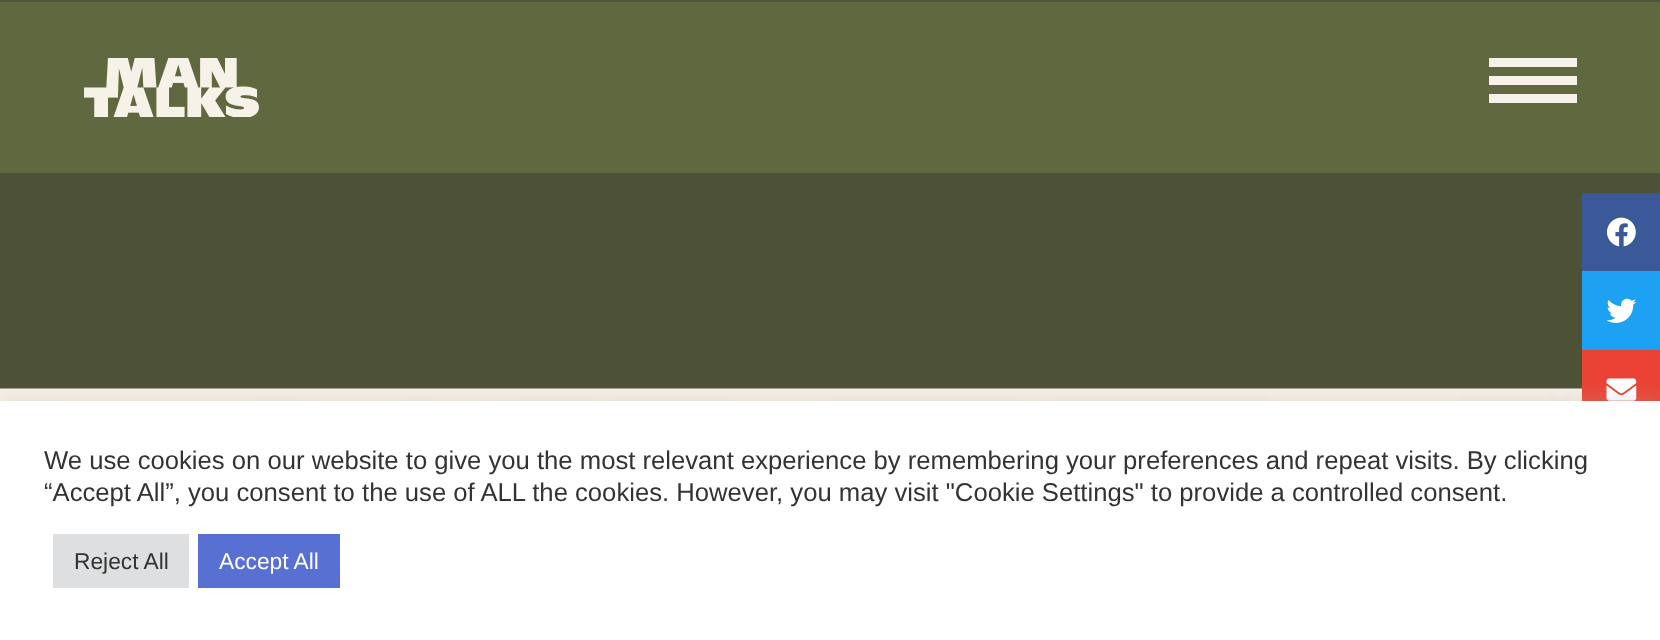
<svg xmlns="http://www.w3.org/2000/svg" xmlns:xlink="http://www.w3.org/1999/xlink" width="1660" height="640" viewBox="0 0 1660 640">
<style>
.cls-1{font:25.67px Liberation Sans;fill:#333333}
.cls-2{font:22.75px Liberation Sans;fill:#333333}
.cls-3{font:22.75px Liberation Sans;fill:#ffffff}
</style>
<defs>
<linearGradient id="g1" gradientUnits="userSpaceOnUse" x1="830" y1="-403" x2="830" y2="9"><stop offset="0" stop-color="#f7f2e8"/><stop offset="1" stop-color="#4d5236"/></linearGradient>
</defs>
<rect width="100%" height="100%" fill="#ffffff"/>
<rect fill="url(#g1)" x="0" y="0" width="1660" height="9"/>
<rect fill="#4d5236" x="0" y="9" width="1660" height="380"/>
<image xlink:href="image0.png" x="0" y="388" width="1582" height="13"/>
<rect fill="#3b5998" x="1582" y="193" width="78" height="78"/>
<image xlink:href="image1.png" x="1607" y="217" width="29" height="30"/>
<rect fill="#1da1f2" x="1582" y="271" width="78" height="79"/>
<image xlink:href="image2.png" x="1606" y="298" width="31" height="25"/>
<rect fill="#ea4335" x="1582" y="350" width="78" height="51"/>
<image xlink:href="image3.png" x="1606" y="378" width="31" height="23"/>
<rect fill="#666e42" fill-opacity="0.79" x="0" y="2" width="1660" height="171"/>
<image xlink:href="image4.png" x="84" y="58" width="175" height="59"/>
<rect fill="#f6f2e9" x="1489" y="58" width="88" height="9"/>
<rect fill="#f6f2e9" x="1489" y="76" width="88" height="9"/>
<rect fill="#f6f2e9" x="1489" y="94" width="88" height="9"/>
<rect fill="#acabab" fill-opacity="0.3" filter="blur(9px)" x="0" y="399" width="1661" height="240"/>
<rect fill="#ffffff" x="0" y="401" width="1660" height="239"/>
<rect fill="#dedfe0" x="53" y="534" width="136" height="54"/>
<rect fill="#5770d1" x="198" y="534" width="142" height="54"/>
<text class="cls-1"><tspan x="44" y="469">We use cookies on our website to give you the most relevant experience by remembering your preferences and repeat visits. By clicking</tspan><tspan x="44" y="501">“Accept All”, you consent to the use of ALL the cookies. However, you may visit "Cookie Settings" to provide a controlled consent.</tspan></text>
<text class="cls-2" x="74" y="569">Reject All</text>
<text class="cls-3" x="219" y="569">Accept All</text>
</svg>
